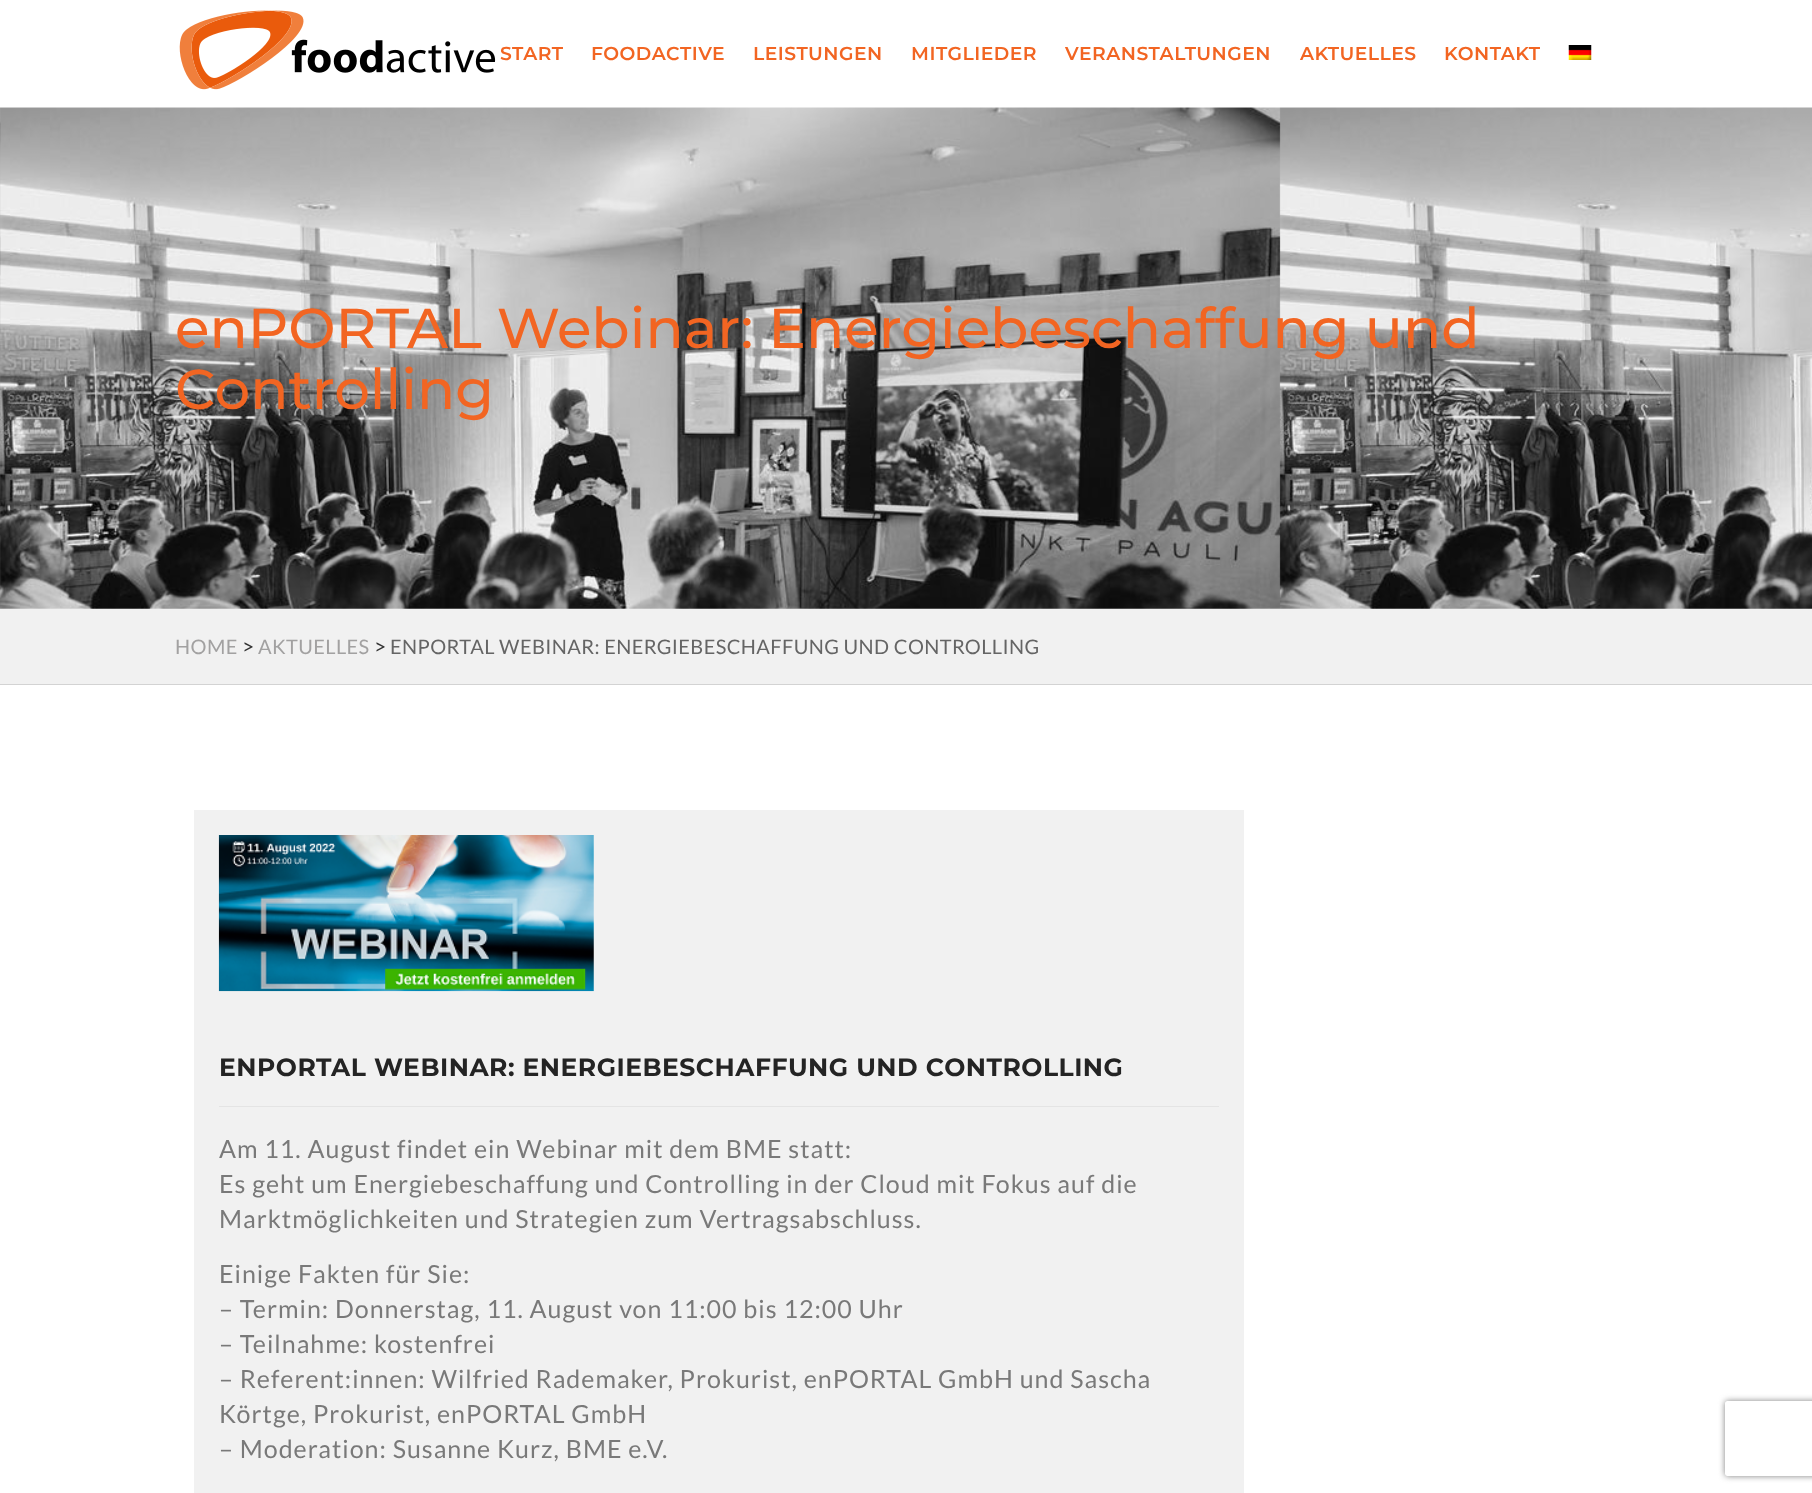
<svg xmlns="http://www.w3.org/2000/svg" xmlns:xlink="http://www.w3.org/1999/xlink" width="1812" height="1493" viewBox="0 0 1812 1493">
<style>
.cls-1{font:100 18.75px 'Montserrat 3';letter-spacing:0.5px;fill:#f26522}
.cls-2{font:100 56.25px 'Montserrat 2';fill:#f26522}
.cls-3{font:20px Lato;letter-spacing:0.4px;fill:#a2a1a1}
.cls-4{font:21px Lato;fill:#333333}
.cls-5{font:20px Lato;letter-spacing:0.4px;fill:#656565}
.cls-6{font:100 25px Montserrat;letter-spacing:0.5px;fill:#242424}
.cls-7{font:25px Lato;letter-spacing:1px;fill:#797979}
</style>
<defs>
<clipPath id="clip1"><path d="M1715 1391H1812V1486H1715ZM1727.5 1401H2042.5C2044 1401 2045 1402 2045 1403.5V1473.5C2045 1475 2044 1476 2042.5 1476H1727.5C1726 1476 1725 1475 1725 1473.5V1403.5C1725 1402 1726 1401 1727.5 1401Z" clip-rule="evenodd"/></clipPath>
</defs>
<rect width="100%" height="100%" fill="#ffffff"/>
<image xlink:href="image2.png" x="0" y="107" width="1812" height="502"/>
<rect fill="#ffffff" fill-opacity="0.06" x="0" y="107" width="1735" height="1"/>
<image xlink:href="image0.png" x="179" y="10" width="317" height="80"/>
<image xlink:href="image1.png" x="1568" y="45" width="24" height="15"/>
<rect fill="#f1f1f1" x="0" y="609" width="1812" height="75"/>
<rect fill="#d3d3d3" x="0" y="684" width="1812" height="1"/>
<rect fill="#f1f1f1" x="194" y="810" width="1050" height="683"/>
<image xlink:href="image3.png" x="218" y="835" width="376" height="157"/>
<rect fill="#e4e4e4" x="219" y="1106" width="1000" height="1"/>
<g clip-path="url(#clip1)">
<rect fill="#808080" filter="blur(3px)" x="1725" y="1401" width="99" height="75" rx="2.5"/>
</g>
<text class="cls-1" x="500" y="60">START</text>
<text class="cls-1" x="591" y="60">FOODACTIVE</text>
<text class="cls-1" x="753" y="60">LEISTUNGEN</text>
<text class="cls-1" x="911" y="60">MITGLIEDER</text>
<text class="cls-1" x="1065" y="60">VERANSTALTUNGEN</text>
<text class="cls-1" x="1300" y="60">AKTUELLES</text>
<text class="cls-1" x="1444" y="60">KONTAKT</text>
<text class="cls-2"><tspan x="175" y="348">enPORTAL Webinar: Energiebeschaffung und</tspan><tspan x="175" y="409">Controlling</tspan></text>
<text class="cls-3" x="175" y="654">HOME</text>
<text class="cls-4" x="242" y="654">&gt;</text>
<text class="cls-3" x="258" y="654">AKTUELLES</text>
<text class="cls-4" x="374" y="654">&gt;</text>
<text class="cls-5" x="390" y="654">ENPORTAL WEBINAR: ENERGIEBESCHAFFUNG UND CONTROLLING</text>
<text class="cls-6" x="219" y="1076">ENPORTAL WEBINAR: ENERGIEBESCHAFFUNG UND CONTROLLING</text>
<text class="cls-7"><tspan x="219" y="1158">Am 11. August findet ein Webinar mit dem BME statt:</tspan><tspan x="219" y="1193">Es geht um Energiebeschaffung und Controlling in der Cloud mit Fokus auf die</tspan><tspan x="219" y="1228">Marktmöglichkeiten und Strategien zum Vertragsabschluss.</tspan></text>
<text class="cls-7"><tspan x="219" y="1283">Einige Fakten für Sie:</tspan><tspan x="219" y="1318">– Termin: Donnerstag, 11. August von 11:00 bis 12:00 Uhr</tspan><tspan x="219" y="1353">– Teilnahme: kostenfrei</tspan><tspan x="219" y="1388">– Referent:innen: Wilfried Rademaker, Prokurist, enPORTAL GmbH und Sascha</tspan><tspan x="219" y="1423">Körtge, Prokurist, enPORTAL GmbH</tspan><tspan x="219" y="1458">– Moderation: Susanne Kurz, BME e.V.</tspan></text>
</svg>
